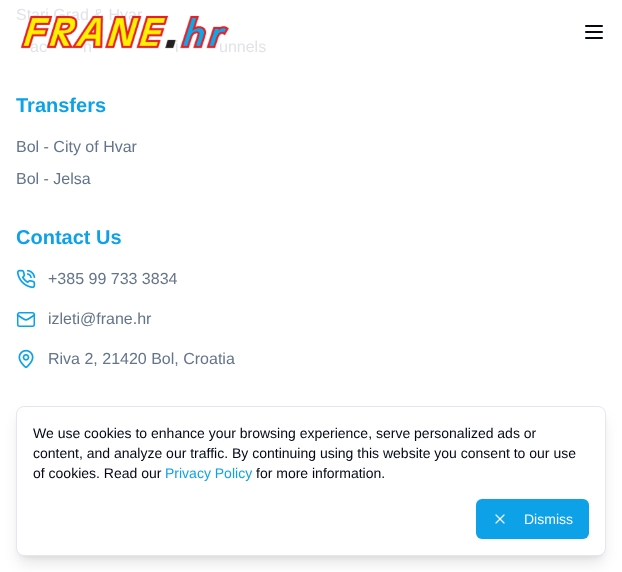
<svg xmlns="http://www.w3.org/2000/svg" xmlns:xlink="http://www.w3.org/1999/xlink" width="622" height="572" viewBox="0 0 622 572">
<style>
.cls-1{font:16px Liberation Sans;fill:#e0e3e8}
.cls-2{font:bold 20px Liberation Sans;fill:#0da2e7}
.cls-3{font:16px Liberation Sans;fill:#64748b}
.cls-4{font:14px Liberation Sans;fill:#020817}
.cls-5{font:14px Liberation Sans;fill:#0da2e7}
.cls-6{font:14px Liberation Sans;fill:#f8fafc}
</style>
<rect width="100%" height="100%" fill="#ffffff"/>
<image xlink:href="image0.png" x="16" y="269" width="20" height="20"/>
<rect fill="none" stroke="#0da2e7" stroke-width="1.5" x="17.75" y="312.75" width="16.5" height="13.5" rx="1.75"/>
<path fill="none" stroke="#0da2e7" stroke-width="1.7" stroke-linecap="round" stroke-linejoin="round" d="M34.5 315C24 321.5 28 321.5 17.5 315"/>
<image xlink:href="image1.png" x="18" y="349" width="16" height="20"/>
<image xlink:href="image3.png" x="585" y="25" width="18" height="14"/>
<rect fill="#000000" fill-opacity="0.1" filter="blur(3px)" x="20" y="414" width="582" height="142" rx="4"/>
<rect fill="#000000" fill-opacity="0.1" filter="blur(7.5px)" x="19" y="419" width="584" height="144" rx="5"/>
<rect fill="#ffffff" stroke="#e2e8f0" x="16.5" y="406.5" width="589" height="149" rx="7.5"/>
<rect fill="#0da2e7" x="476" y="499" width="113" height="40" rx="6"/>
<image xlink:href="image4.png" x="495" y="514" width="10" height="10"/>
<text class="cls-1" x="16" y="20">Stari Grad &amp; Hvar</text>
<text class="cls-1" x="30" y="52">ac</text>
<text class="cls-1" x="83" y="52">n</text>
<text class="cls-1" x="175" y="52">i</text>
<text class="cls-1" x="219" y="52">unnels</text>
<text class="cls-2" x="16" y="112">Transfers</text>
<text class="cls-3" x="16" y="152">Bol - City of Hvar</text>
<text class="cls-3" x="16" y="184">Bol - Jelsa</text>
<text class="cls-2" x="16" y="244">Contact Us</text>
<text class="cls-3" x="48" y="284">+385 99 733 3834</text>
<text class="cls-3" x="48" y="324">izleti@frane.hr</text>
<text class="cls-3" x="48" y="364">Riva 2, 21420 Bol, Croatia</text>
<image xlink:href="image2.png" x="20" y="15" width="210" height="34"/>
<text class="cls-4"><tspan x="33" y="438">We use cookies to enhance your browsing experience, serve personalized ads or</tspan><tspan x="33" y="458">content, and analyze our traffic. By continuing using this website you consent to our use</tspan><tspan x="33" y="478">of cookies. Read our</tspan></text>
<text class="cls-5" x="165" y="478">Privacy Policy</text>
<text class="cls-4" x="256" y="478">for more information.</text>
<text class="cls-6" x="524" y="524">Dismiss</text>
</svg>
